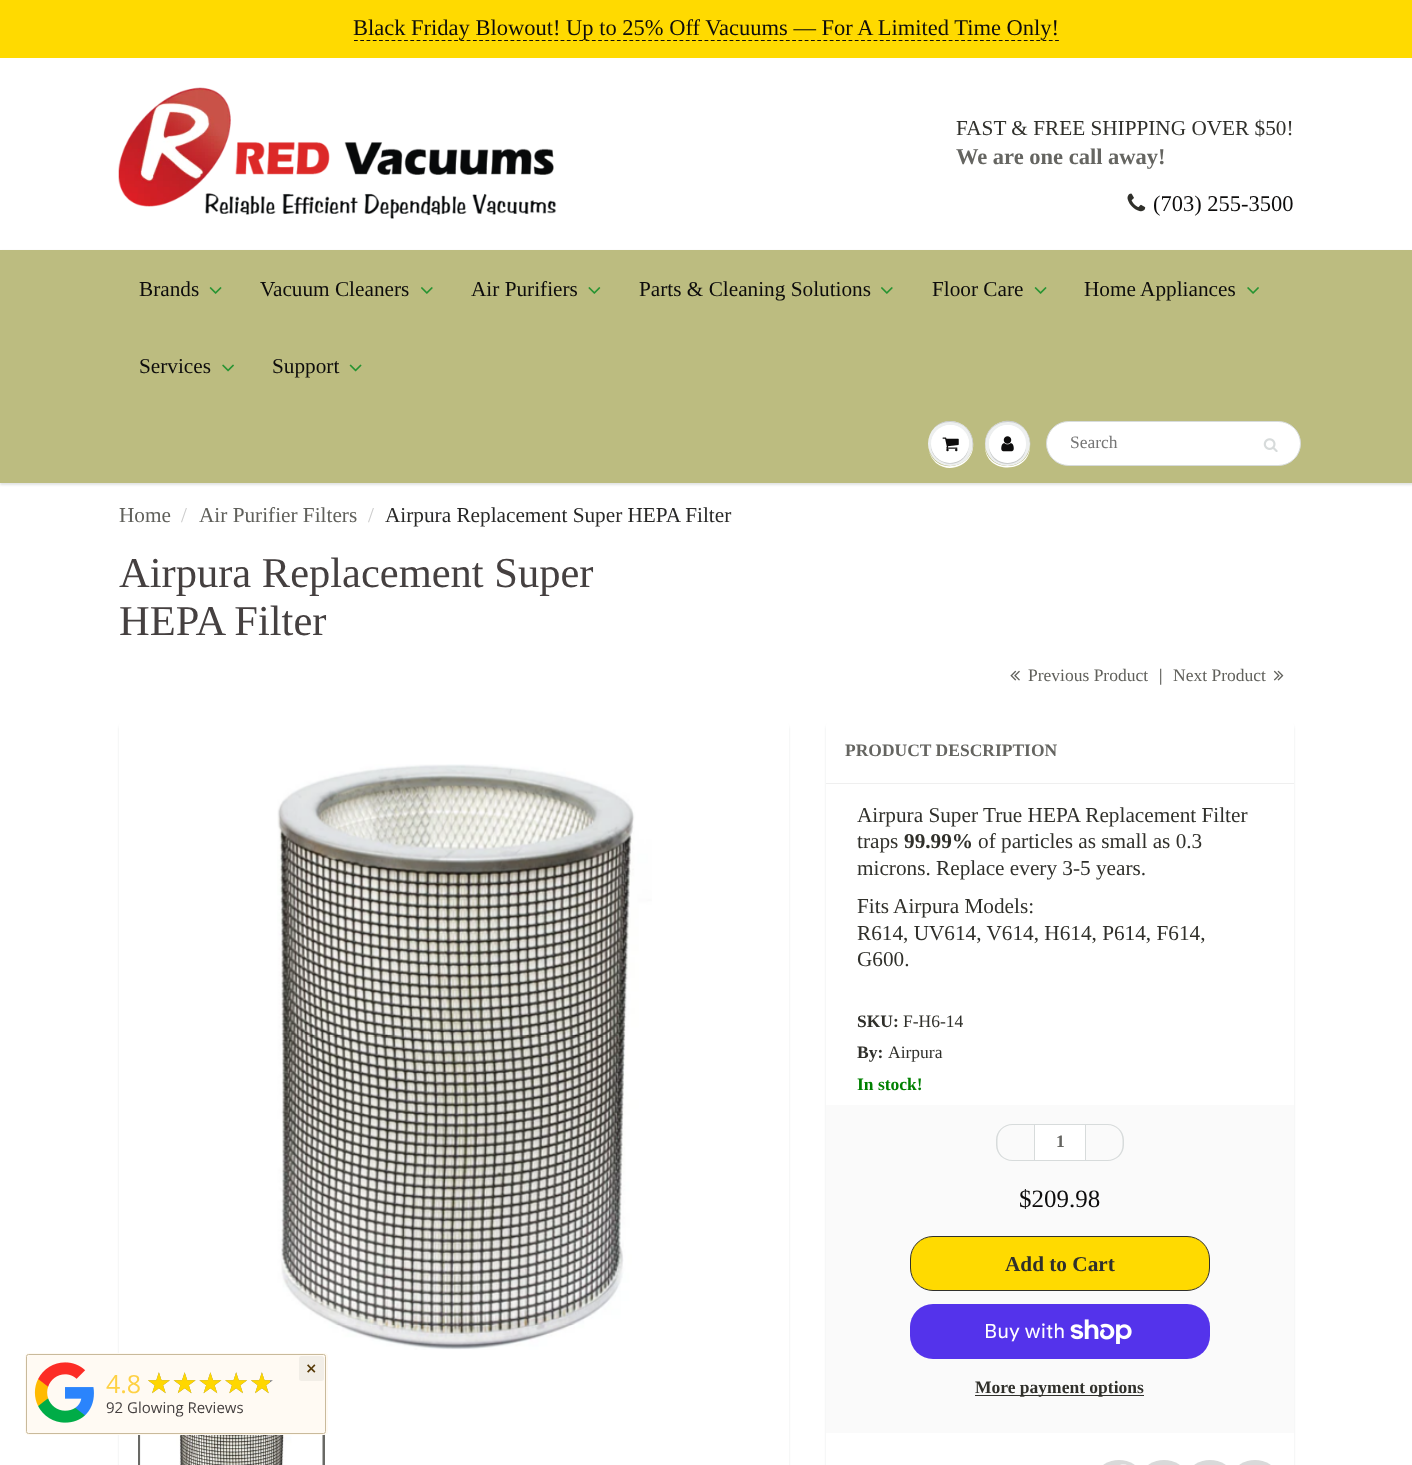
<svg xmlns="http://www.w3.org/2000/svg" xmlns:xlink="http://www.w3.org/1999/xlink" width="1412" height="1465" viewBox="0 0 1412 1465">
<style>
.cls-1{font:22.5px Liberation Serif;fill:#0d0c0c}
.cls-2{font:21.25px Liberation Serif;fill:#30302b}
.cls-3{font:bold 22.5px Liberation Serif;fill:#656561}
.cls-4{font:21.25px Liberation Serif;fill:#0d0c0c}
.cls-5{font:17.5px Liberation Serif;fill:#757575}
.cls-6{font:21.25px Liberation Serif;fill:#60605b}
.cls-7{font:21.25px Liberation Serif;fill:#cccccc}
.cls-8{font:21.25px Liberation Serif;fill:#282827}
.cls-9{font:42.5px Liberation Serif;fill:#454040}
.cls-10{font:17.5px Liberation Serif;fill:#60605b}
.cls-11{font:17.5px Liberation Serif;fill:#30302b}
.cls-12{font:bold 17.5px Liberation Serif;fill:#656561}
.cls-13{font:bold 21.25px Liberation Serif;fill:#30302b}
.cls-14{font:bold 17.5px Liberation Serif;fill:#30302b}
.cls-15{font:bold 17.5px Liberation Serif;fill:#008000}
.cls-16{font:25px Liberation Serif;fill:#0d0c0c}
.cls-17{font:20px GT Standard;fill:#ffffff}
.cls-18{font:bold 17.5px Open Sans;fill:#573a08}
.cls-19{font:25px Open Sans;fill:#fed144}
.cls-20{font:28.75px DejaVu Sans;fill:#808080}
.cls-21{font:28.75px DejaVu Sans;fill:#ffd700}
.cls-22{font:15px Open Sans;fill:#454040}
</style>
<defs>
<clipPath id="clip1"><rect x="146" y="1369" width="124" height="25"/></clipPath>
</defs>
<rect width="100%" height="100%" fill="#ffffff"/>
<rect fill="#ffda00" x="0" y="0" width="1412" height="58"/>
<path fill="none" stroke="#0d0c0c" stroke-width="1.2" stroke-dasharray="3.75 2.51" d="M354 40.5H1059"/>
<image xlink:href="image0.png" x="118" y="87" width="439" height="132"/>
<image xlink:href="image1.png" x="1127" y="193" width="19" height="19"/>
<rect fill="#0b191c" fill-opacity="0.12" filter="blur(1px)" x="0" y="251" width="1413" height="234"/>
<rect fill="#bcbc80" x="0" y="250" width="1412" height="233"/>
<image xlink:href="image2.png" x="209" y="287" width="13" height="7"/>
<image xlink:href="image3.png" x="421" y="287" width="12" height="7"/>
<image xlink:href="image4.png" x="588" y="287" width="13" height="7"/>
<image xlink:href="image3.png" x="881" y="287" width="12" height="7"/>
<image xlink:href="image2.png" x="1034" y="287" width="13" height="7"/>
<image xlink:href="image5.png" x="1247" y="287" width="12" height="7"/>
<image xlink:href="image6.png" x="222" y="364" width="12" height="8"/>
<image xlink:href="image7.png" x="349" y="364" width="13" height="8"/>
<path fill="#ffffff" d="M929 451C930 456 933 460 936 463C954 477 979 459 972 438C979 466 938 478 929 451Z"/>
<circle fill="#edefef" cx="950.5" cy="443.5" r="22.5"/>
<path fill="#c9cbcb" d="M950 422C968 422 975 438 972 451C980 428 949 410 933 429C937 425 943 422 950 422Z"/>
<path fill="#c9cbcb" d="M931.5 440.5C926.5 460.5 954 473 966 455.5C968.5 451 969.5 445.5 968.5 440.5C969.5 445.5 968 450.5 965.5 454C954.5 471 928 460 931.5 440.5Z"/>
<circle fill="#ffffff" cx="950" cy="444" r="19"/>
<path fill="#ffffff" d="M950 426C964 426 970 438 968 448C970 443 969 438 966 433C954 416 927 428 932 448C930 438 936 426 950 426Z"/>
<image xlink:href="image8.png" x="942" y="437" width="17" height="15"/>
<path fill="#ffffff" d="M985 445C984 475 1031 475 1030 445C1029 473 986 473 985 445Z"/>
<circle fill="#edefef" cx="1007.5" cy="443.5" r="22.5"/>
<path fill="#c9cbcb" d="M1008 422C1024 422 1031 436 1030 448C1031 442 1030 436 1026 431C1012 409 979 426 986 450C983 437 991 422 1008 422Z"/>
<path fill="#c9cbcb" d="M989 447.5C991 469.5 1024 469.5 1026 447.5C1022 467.5 993 467.5 989 447.5Z"/>
<rect fill="#ffffff" x="989" y="425" width="37" height="38" rx="18.5"/>
<path fill="#ffffff" d="M1008 426C1020 426 1026 435.5 1026 444.5C1026.5 423 998.5 417.5 990.5 436.5C988.5 440.5 988.5 445.5 990 450C987 439.5 993 426 1008 426Z"/>
<image xlink:href="image9.png" x="1001" y="436" width="13" height="16"/>
<rect fill="#ffffff" stroke="#d7dbdb" x="1046.5" y="421.5" width="254" height="44" rx="22"/>
<image xlink:href="image10.png" x="1263" y="438" width="15" height="14"/>
<image xlink:href="image11.png" x="1010" y="670" width="10" height="11"/>
<image xlink:href="image12.png" x="1273" y="670" width="11" height="11"/>
<rect fill="#0b191c" fill-opacity="0.1" filter="blur(1px)" x="119" y="723" width="670" height="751" rx="6"/>
<rect fill="#ffffff" x="119" y="720" width="670" height="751" rx="6"/>
<image xlink:href="image13.png" x="277" y="764" width="375" height="586"/>
<rect fill="none" stroke="#696965" stroke-width="3" x="139.5" y="1395.5" width="184" height="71"/>
<image xlink:href="image14.png" x="140" y="1435" width="183" height="30"/>
<rect fill="#0b191c" fill-opacity="0.1" filter="blur(1px)" x="826" y="723" width="468" height="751" rx="6"/>
<rect fill="#ffffff" x="826" y="720" width="468" height="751" rx="6"/>
<rect fill="#efefef" x="826" y="783" width="468" height="1"/>
<rect fill="#fafafa" x="826" y="1105" width="468" height="328"/>
<path fill="#d7dbdb" fill-rule="evenodd" d="M1012.5 1124H1034V1161H1012.5C1003.5 1161 996 1154 996 1145V1140C996 1131 1003.5 1124 1012.5 1124ZM1012.5 1125H1034V1160H1012.5C1004 1160 997.5 1153.5 997.5 1145V1140C997.5 1131.5 1004 1125 1012.5 1125Z"/>
<rect fill="#ffffff" stroke="#d7dbdb" x="1034.5" y="1124.5" width="51" height="36"/>
<path fill="#d7dbdb" fill-rule="evenodd" d="M1086 1124H1107.5C1116.5 1124 1124 1131 1124 1140V1145C1124 1154 1116.5 1161 1107.5 1161H1086ZM1086 1125H1107.5C1116 1125 1122.5 1131.5 1122.5 1140V1145C1122.5 1153.5 1116 1160 1107.5 1160H1086Z"/>
<rect fill="#ffda00" stroke="#30302b" x="910.5" y="1236.5" width="299" height="54" rx="22.5"/>
<rect fill="#5433eb" x="910" y="1304" width="300" height="55" rx="23"/>
<image xlink:href="image15.png" x="1070" y="1319" width="62" height="25"/>
<rect fill="#30302b" x="975" y="1395" width="169" height="1"/>
<rect fill="#d9d9d9" x="1099" y="1460" width="40" height="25" rx="20"/>
<image xlink:href="image16.png" x="1120" y="1464" width="7" height="1"/>
<rect fill="#d9d9d9" x="1144" y="1460" width="40" height="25" rx="20"/>
<rect fill="#d9d9d9" x="1190" y="1460" width="40" height="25" rx="20"/>
<rect fill="#d9d9d9" x="1235" y="1460" width="40" height="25" rx="20"/>
<rect fill="#fffaf3" x="25" y="1353" width="303" height="82" rx="4"/>
<rect fill="none" stroke="#c9ba9b" x="26.5" y="1354.5" width="299" height="79" rx="2"/>
<rect fill="#f2eee7" x="299" y="1356" width="25" height="25" rx="2.5"/>
<image xlink:href="image17.png" x="34" y="1362" width="60" height="61"/>
<text class="cls-1" x="353" y="35">Black Friday Blowout! Up to 25% Off Vacuums — For A Limited Time Only!</text>
<text class="cls-2" x="956" y="135">FAST &amp; FREE SHIPPING OVER $50!</text>
<text class="cls-3" x="956" y="164">We are one call away!</text>
<text class="cls-1" x="1153" y="211">(703) 255-3500</text>
<text class="cls-4" x="139" y="296">Brands</text>
<text class="cls-4" x="260" y="296">Vacuum Cleaners</text>
<text class="cls-4" x="471" y="296">Air Purifiers</text>
<text class="cls-4" x="639" y="296">Parts &amp; Cleaning Solutions</text>
<text class="cls-4" x="932" y="296">Floor Care</text>
<text class="cls-4" x="1084" y="296">Home Appliances</text>
<text class="cls-4" x="139" y="373">Services</text>
<text class="cls-4" x="272" y="373">Support</text>
<text class="cls-5" x="1070" y="448">Search</text>
<text class="cls-6" x="119" y="522">Home</text>
<text class="cls-7" x="181" y="522">/</text>
<text class="cls-6" x="199" y="522">Air Purifier Filters</text>
<text class="cls-7" x="368" y="522">/</text>
<text class="cls-8" x="385" y="522">Airpura Replacement Super HEPA Filter</text>
<text class="cls-9"><tspan x="119" y="587">Airpura Replacement Super</tspan><tspan x="119" y="635">HEPA Filter</tspan></text>
<text class="cls-10" x="1028" y="681">Previous Product</text>
<text class="cls-11" x="1159" y="681">|</text>
<text class="cls-10" x="1173" y="681">Next Product</text>
<text class="cls-12" x="845" y="756">PRODUCT DESCRIPTION</text>
<text class="cls-2"><tspan x="857" y="822">Airpura Super True HEPA Replacement Filter</tspan><tspan x="857" y="848">traps</tspan></text>
<text class="cls-13" x="904" y="848">99.99%</text>
<text class="cls-2" x="978" y="848">of particles as small as 0.3</text>
<text class="cls-2"><tspan x="857" y="875">microns. Replace every 3-5 years.</tspan><tspan x="857" y="913">Fits Airpura Models:</tspan><tspan x="857" y="940">R614, UV614, V614, H614, P614, F614,</tspan><tspan x="857" y="966">G600.</tspan></text>
<text class="cls-14" x="857" y="1027">SKU:</text>
<text class="cls-11" x="903" y="1027">F-H6-14</text>
<text class="cls-14" x="857" y="1058">By:</text>
<text class="cls-11" x="888" y="1058">Airpura</text>
<text class="cls-15" x="857" y="1090">In stock!</text>
<text class="cls-12" x="1056" y="1147">1</text>
<text class="cls-16" x="1019" y="1207">$209.98</text>
<text class="cls-13" x="1005" y="1271">Add to Cart</text>
<text class="cls-17" x="984" y="1338">Buy with</text>
<text class="cls-14" x="975" y="1393">More payment options</text>
<text class="cls-18" x="306" y="1375">×</text>
<text class="cls-19" x="106" y="1393">4.8</text>
<text class="cls-20" x="146" y="1393">★★★★★</text>
<g clip-path="url(#clip1)">
<text class="cls-21" x="146" y="1393">★★★★★</text>
</g>
<text class="cls-22" x="106" y="1413">92 Glowing Reviews</text>
</svg>
